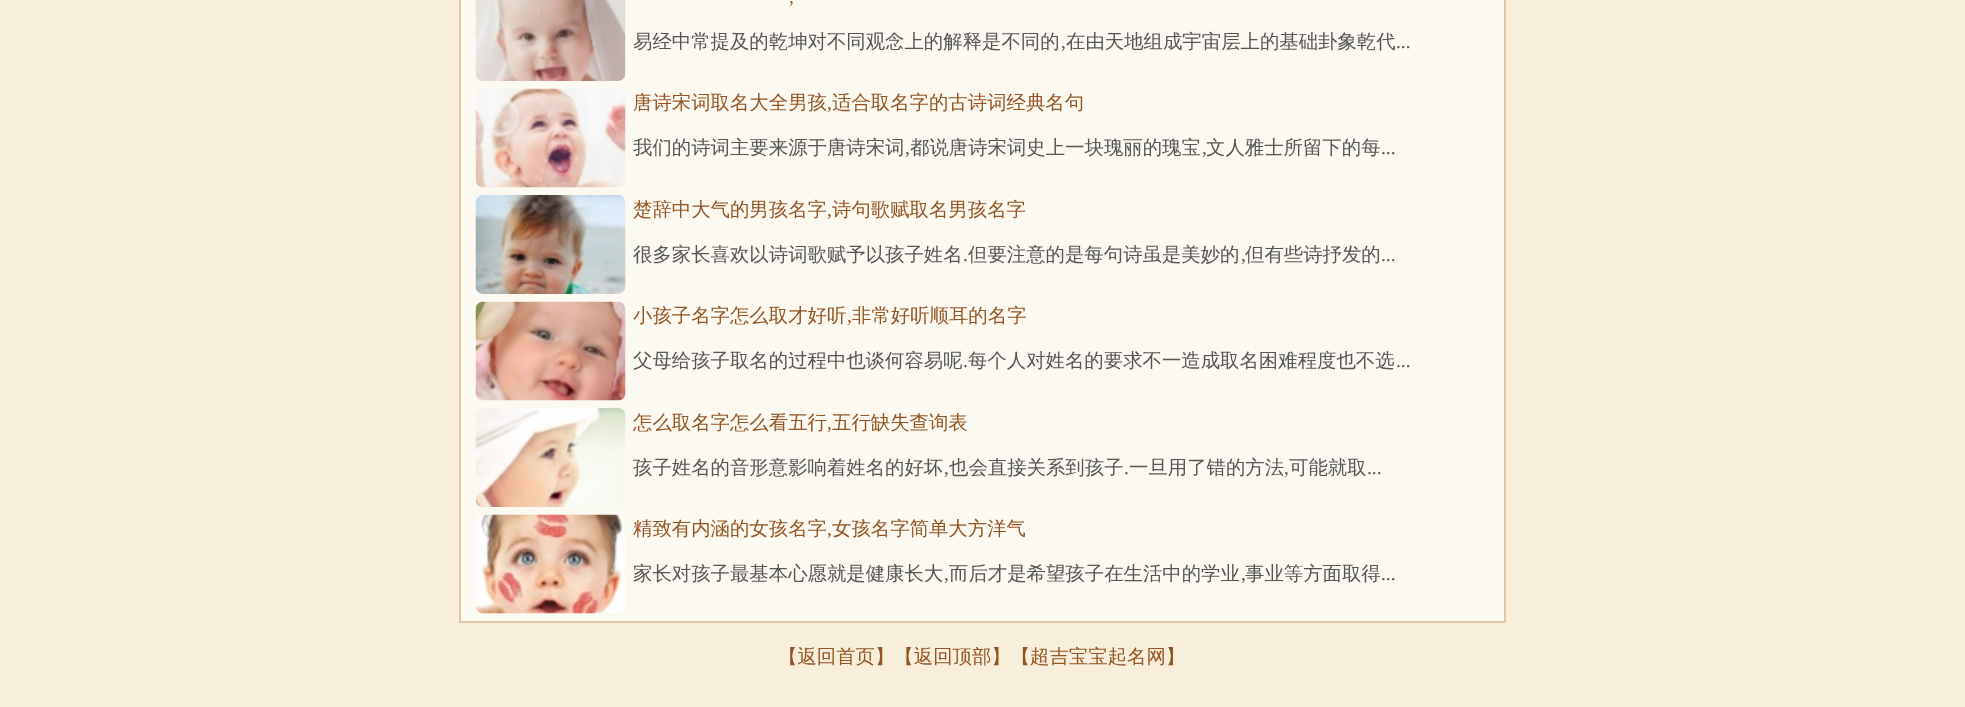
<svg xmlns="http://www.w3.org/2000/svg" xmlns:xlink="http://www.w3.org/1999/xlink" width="1965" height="707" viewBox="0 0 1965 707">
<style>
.cls-1{font:19.4px Liberation Serif;fill:#935422}
.cls-2{font:500 19.4px WenQuanYi Zen Hei;fill:#555555}
.cls-3{font:19.4px Liberation Serif;fill:#555555}
.cls-4{font:500 19.4px WenQuanYi Zen Hei;fill:#935422}
</style>
<rect width="100%" height="100%" fill="#f8efda"/>
<rect fill="#fcf9f1" stroke="#e3c6a3" stroke-width="2" x="460" y="-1" width="1045" height="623"/>
<image xlink:href="image0.png" x="475" y="0" width="151" height="81"/>
<image xlink:href="image1.png" x="475" y="88" width="151" height="100"/>
<image xlink:href="image2.png" x="475" y="195" width="151" height="99"/>
<image xlink:href="image3.png" x="475" y="301" width="151" height="100"/>
<image xlink:href="image4.png" x="475" y="408" width="151" height="99"/>
<image xlink:href="image5.png" x="476" y="514" width="149" height="100"/>
<text class="cls-1" x="789" y="3">,</text>
<text class="cls-2" x="633" y="48">易经中常提及的乾坤对不同观念上的解释是不同的</text>
<text class="cls-3" x="1061" y="48">,</text>
<text class="cls-2" x="1066" y="48">在由天地组成宇宙层上的基础卦象乾代</text>
<text class="cls-3" x="1396" y="48">...</text>
<text class="cls-4" x="633" y="109">唐诗宋词取名大全男孩</text>
<text class="cls-1" x="827" y="109">,</text>
<text class="cls-4" x="832" y="109">适合取名字的古诗词经典名句</text>
<text class="cls-2" x="633" y="154">我们的诗词主要来源于唐诗宋词</text>
<text class="cls-3" x="905" y="154">,</text>
<text class="cls-2" x="910" y="154">都说唐诗宋词史上一块瑰丽的瑰宝</text>
<text class="cls-3" x="1202" y="154">,</text>
<text class="cls-2" x="1206" y="154">文人雅士所留下的每</text>
<text class="cls-3" x="1381" y="154">...</text>
<text class="cls-4" x="633" y="216">楚辞中大气的男孩名字</text>
<text class="cls-1" x="827" y="216">,</text>
<text class="cls-4" x="832" y="216">诗句歌赋取名男孩名字</text>
<text class="cls-2" x="633" y="261">很多家长喜欢以诗词歌赋予以孩子姓名</text>
<text class="cls-3" x="963" y="261">.</text>
<text class="cls-2" x="968" y="261">但要注意的是每句诗虽是美妙的</text>
<text class="cls-3" x="1241" y="261">,</text>
<text class="cls-2" x="1245" y="261">但有些诗抒发的</text>
<text class="cls-3" x="1381" y="261">...</text>
<text class="cls-4" x="633" y="322">小孩子名字怎么取才好听</text>
<text class="cls-1" x="847" y="322">,</text>
<text class="cls-4" x="852" y="322">非常好听顺耳的名字</text>
<text class="cls-2" x="633" y="367">父母给孩子取名的过程中也谈何容易呢</text>
<text class="cls-3" x="963" y="367">.</text>
<text class="cls-2" x="968" y="367">每个人对姓名的要求不一造成取名困难程度也不选</text>
<text class="cls-3" x="1396" y="367">...</text>
<text class="cls-4" x="633" y="429">怎么取名字怎么看五行</text>
<text class="cls-1" x="827" y="429">,</text>
<text class="cls-4" x="832" y="429">五行缺失查询表</text>
<text class="cls-2" x="633" y="474">孩子姓名的音形意影响着姓名的好坏</text>
<text class="cls-3" x="944" y="474">,</text>
<text class="cls-2" x="949" y="474">也会直接关系到孩子</text>
<text class="cls-3" x="1124" y="474">.</text>
<text class="cls-2" x="1129" y="474">一旦用了错的方法</text>
<text class="cls-3" x="1284" y="474">,</text>
<text class="cls-2" x="1289" y="474">可能就取</text>
<text class="cls-3" x="1367" y="474">...</text>
<text class="cls-4" x="633" y="535">精致有内涵的女孩名字</text>
<text class="cls-1" x="827" y="535">,</text>
<text class="cls-4" x="832" y="535">女孩名字简单大方洋气</text>
<text class="cls-2" x="633" y="580">家长对孩子最基本心愿就是健康长大</text>
<text class="cls-3" x="944" y="580">,</text>
<text class="cls-2" x="949" y="580">而后才是希望孩子在生活中的学业</text>
<text class="cls-3" x="1241" y="580">,</text>
<text class="cls-2" x="1245" y="580">事业等方面取得</text>
<text class="cls-3" x="1381" y="580">...</text>
<text class="cls-4" x="778" y="663">【返回首页】【返回顶部】【超吉宝宝起名网】</text>
</svg>
